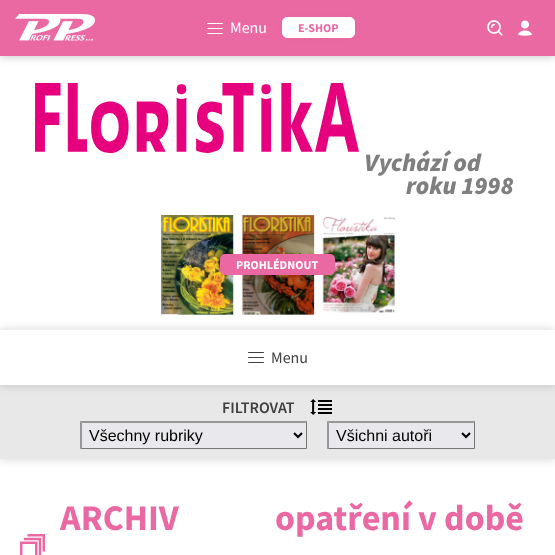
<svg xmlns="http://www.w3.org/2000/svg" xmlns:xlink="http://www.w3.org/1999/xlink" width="555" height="555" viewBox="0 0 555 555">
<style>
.cls-1{font:16px Source Sans Pro;fill:#ffffff}
.cls-2{font:bold 12px Source Sans Pro;fill:#eb69a3}
.cls-3{font:bold 12px Source Sans Pro;fill:#ffffff}
.cls-4{font:16px Source Sans Pro;fill:#404040}
.cls-5{font:600 16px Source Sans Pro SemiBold;fill:#404040}
.cls-6{font:16px Liberation Sans;fill:#000000}
.cls-7{font:bold 36px Source Sans Pro;fill:#eb69a3}
</style>
<rect width="100%" height="100%" fill="#ffffff"/>
<rect fill="#000000" fill-opacity="0.25" filter="blur(5px)" x="0" y="0" width="555" height="56"/>
<rect fill="#eb69a3" x="0" y="0" width="555" height="56"/>
<image xlink:href="image0.png" x="15" y="14" width="80" height="27"/>
<image xlink:href="image1.png" x="207" y="23" width="16" height="11"/>
<rect fill="#000000" fill-opacity="0.15" filter="blur(5px)" x="287" y="22" width="63" height="11"/>
<rect fill="#ffffff" stroke="#ffffff" x="282.5" y="17.5" width="72" height="20" rx="4.5"/>
<image xlink:href="image2.png" x="487" y="20" width="16" height="16"/>
<image xlink:href="image3.png" x="518" y="20" width="14" height="16"/>
<image xlink:href="image4.png" x="35" y="83" width="479" height="112"/>
<image xlink:href="image5.png" x="161" y="215" width="234" height="100"/>
<rect fill="#000000" fill-opacity="0.15" filter="blur(5px)" x="225" y="259" width="105" height="11"/>
<rect fill="#eb69a3" x="220" y="254" width="115" height="21" rx="5"/>
<rect fill="#1d1d1b" fill-opacity="0.2" filter="blur(5px)" x="0" y="385" width="555" height="74"/>
<rect fill="#e8e8e8" x="0" y="385" width="555" height="74"/>
<image xlink:href="image7.png" x="310" y="399" width="22" height="16"/>
<rect fill="#1d1d1b" fill-opacity="0.2" filter="blur(5px)" x="0" y="330" width="555" height="55"/>
<rect fill="#ffffff" x="0" y="330" width="555" height="55"/>
<image xlink:href="image6.png" x="248" y="352" width="16" height="11"/>
<rect fill="#e9e9ed" x="80" y="421" width="227" height="28"/>
<path fill="#979797" d="M80 421H307L306 423H82Z"/>
<path fill="#767676" d="M307 421V449L306 448V423Z"/>
<path fill="#767676" d="M307 449H80L82 448H306Z"/>
<path fill="#979797" d="M80 449V421L82 423V448Z"/>
<path fill="none" stroke="#000000" stroke-width="2" d="M294 433L298 437L302 433"/>
<rect fill="#e9e9ed" x="327" y="421" width="148" height="28"/>
<path fill="#979797" d="M327 421H475L474 423H329Z"/>
<path fill="#767676" d="M475 421V449L474 448V423Z"/>
<path fill="#767676" d="M475 449H327L329 448H474Z"/>
<path fill="#979797" d="M327 449V421L329 423V448Z"/>
<path fill="none" stroke="#000000" stroke-width="2" d="M462 433L466 437L470 433"/>
<image xlink:href="image8.png" x="20" y="534" width="25" height="21"/>
<text class="cls-1" x="230" y="33">Menu</text>
<text class="cls-2" x="298" y="32">E-SHOP</text>
<text class="cls-3" x="236" y="269">PROHLÉDNOUT</text>
<text class="cls-4" x="271" y="363">Menu</text>
<text class="cls-5" x="222" y="413">FILTROVAT</text>
<text class="cls-6" x="89" y="441">Všechny rubriky</text>
<text class="cls-6" x="336" y="441">Všichni autoři</text>
<text class="cls-7" x="60" y="530">ARCHIV</text>
<text class="cls-7" x="275" y="530">opatření v době</text>
</svg>
